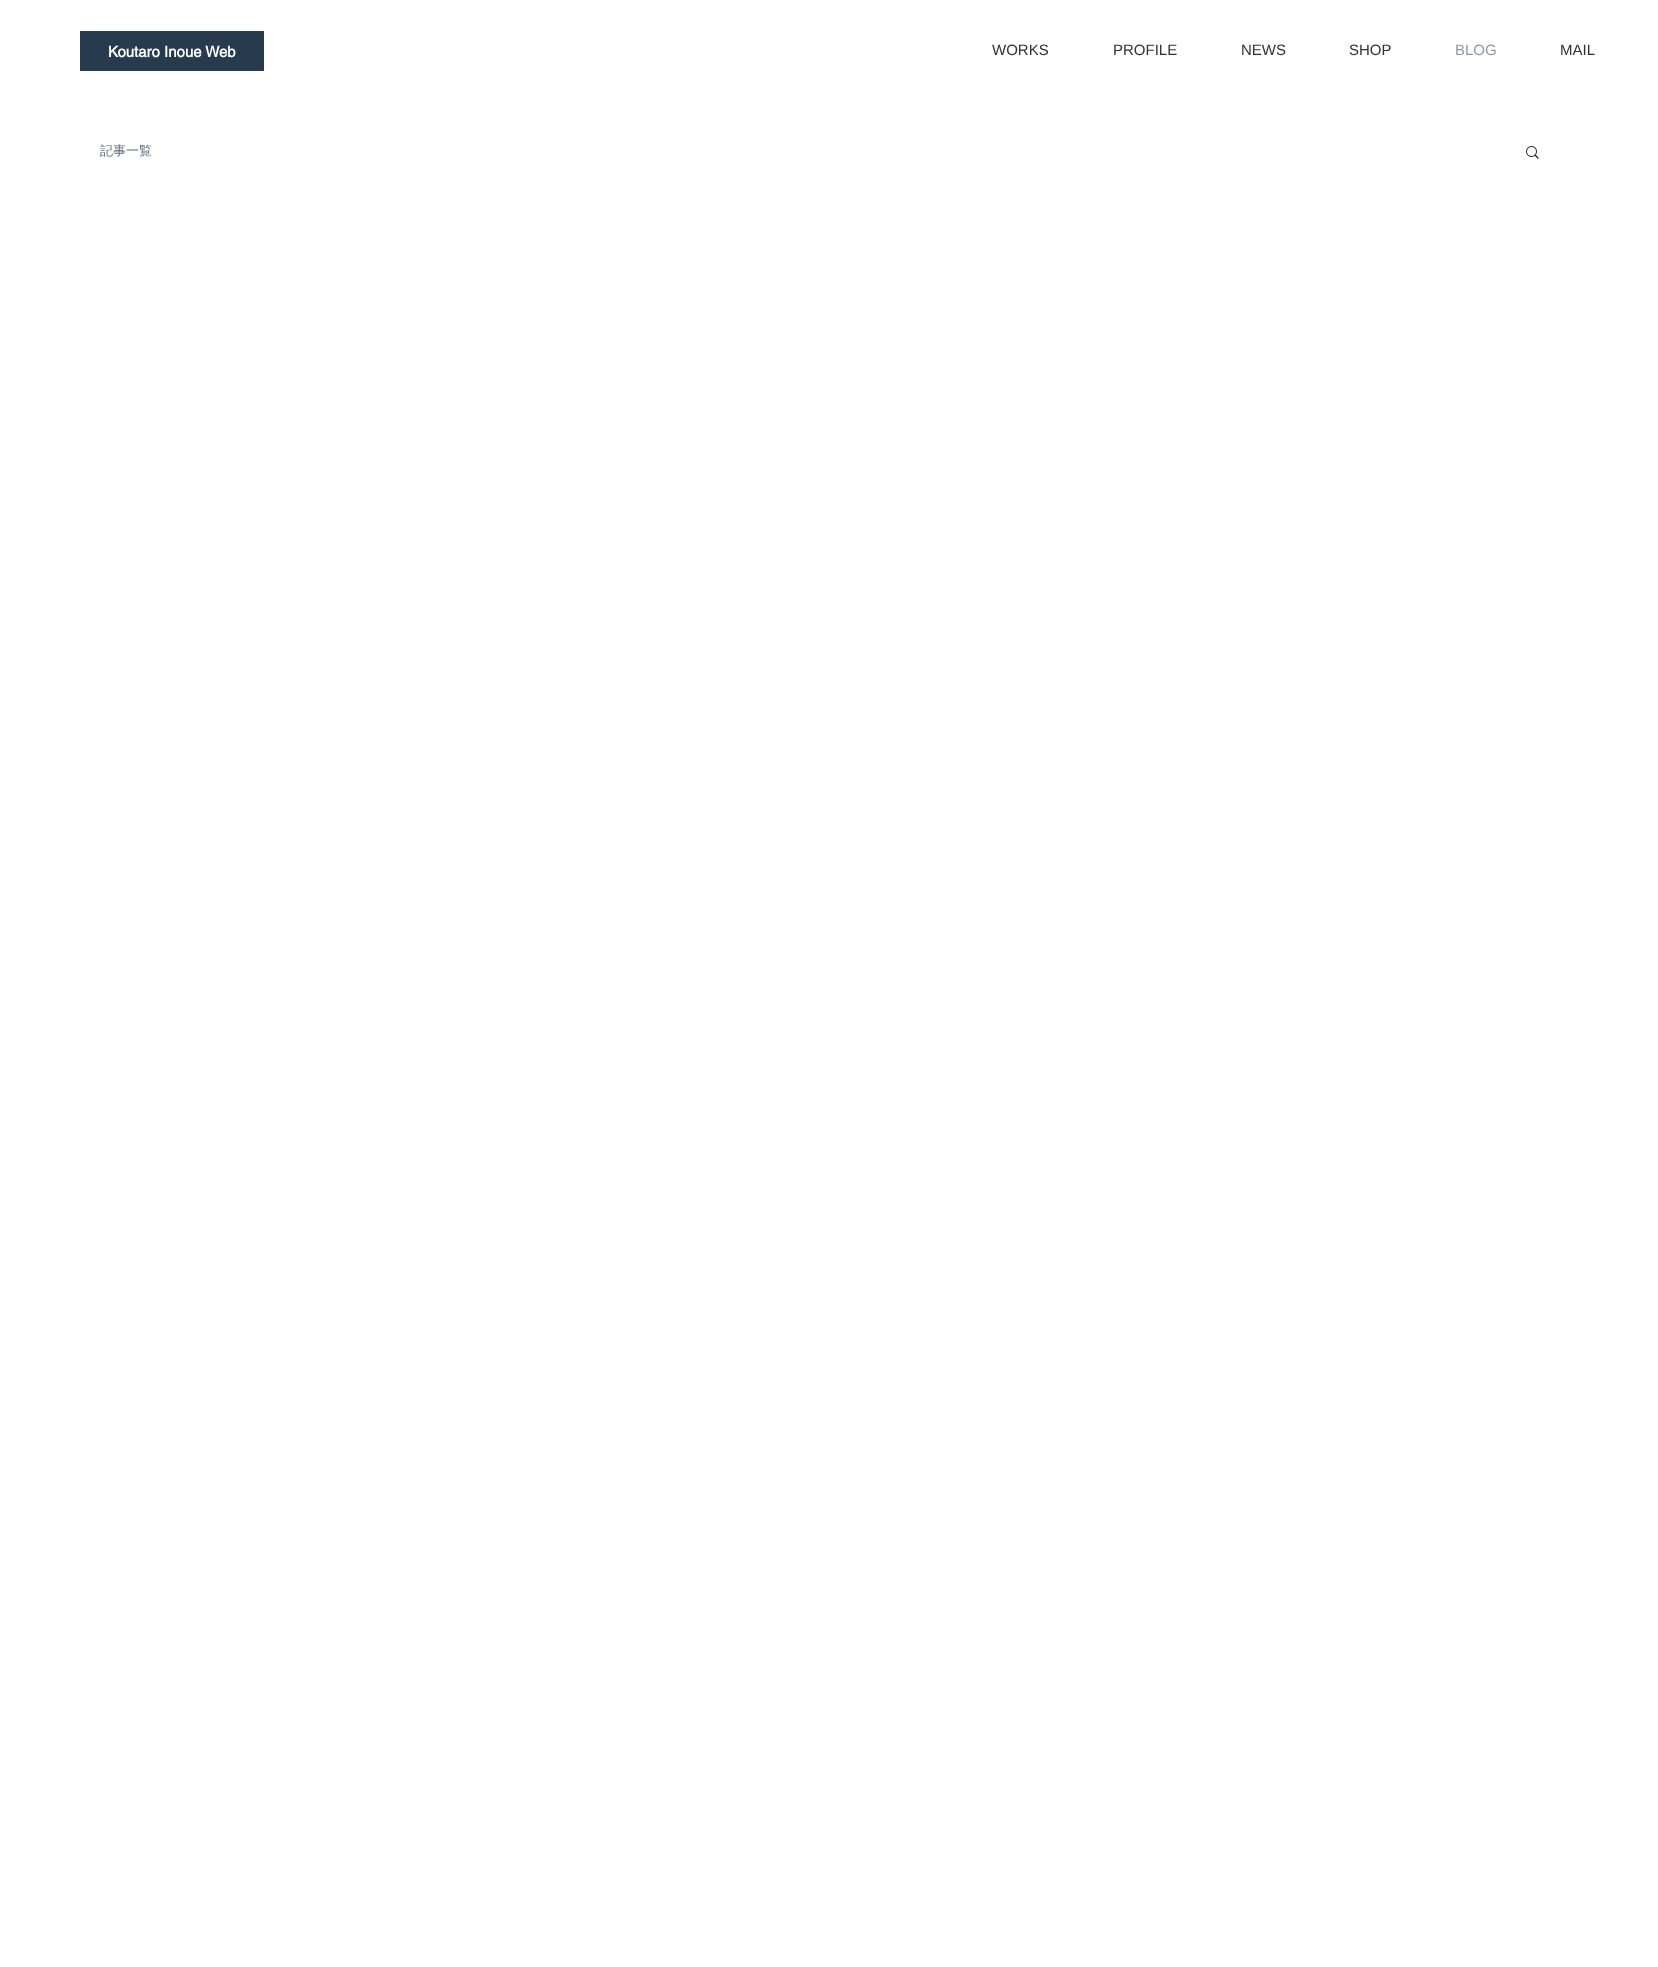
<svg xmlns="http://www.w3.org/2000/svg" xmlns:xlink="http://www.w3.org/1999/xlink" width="1658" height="1967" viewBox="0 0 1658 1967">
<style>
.cls-1{font:bold 15px helvetica;fill:#ffffff}
.cls-2{font:15px Liberation Sans;fill:#303131}
.cls-3{font:15px Liberation Sans;fill:#8b98a7}
.cls-4{font:500 13px WenQuanYi Zen Hei;fill:#5c6b7a}
</style>
<rect width="100%" height="100%" fill="#ffffff"/>
<rect fill="#273a4e" x="80" y="31" width="184" height="40"/>
<image xlink:href="image0.png" x="1526" y="146" width="13" height="13"/>
<text class="cls-1" x="108" y="57">Koutaro Inoue Web</text>
<text class="cls-2" x="992" y="55">WORKS</text>
<text class="cls-2" x="1113" y="55">PROFILE</text>
<text class="cls-2" x="1241" y="55">NEWS</text>
<text class="cls-2" x="1349" y="55">SHOP</text>
<text class="cls-3" x="1455" y="55">BLOG</text>
<text class="cls-2" x="1560" y="55">MAIL</text>
<text class="cls-4" x="100" y="155">記事一覧</text>
</svg>
